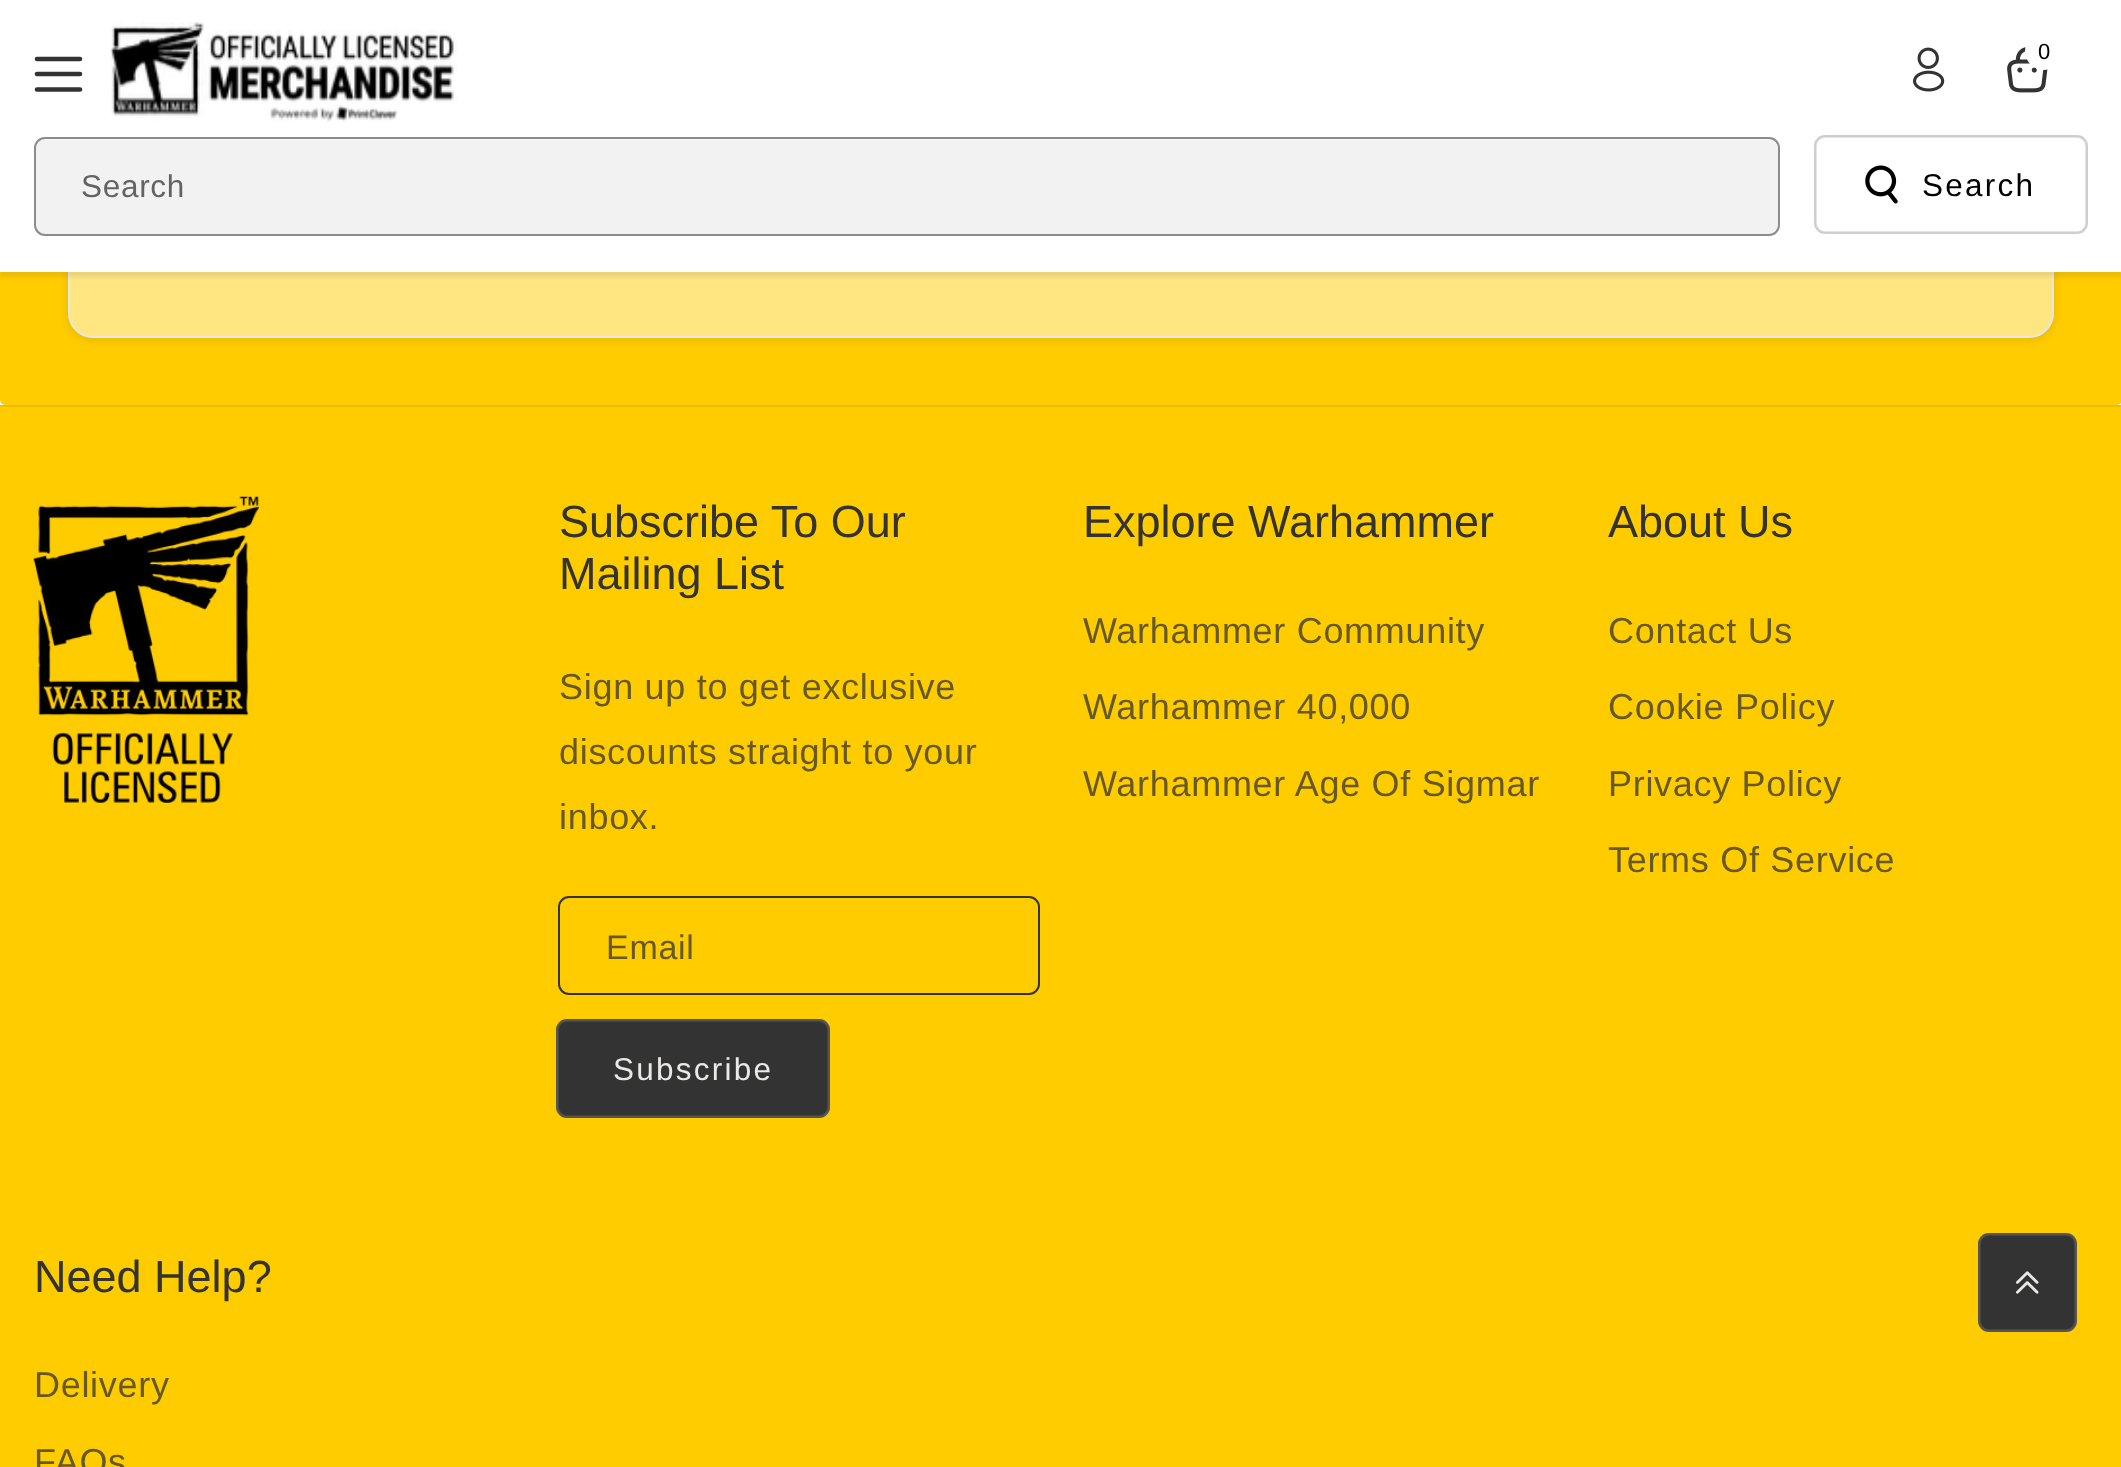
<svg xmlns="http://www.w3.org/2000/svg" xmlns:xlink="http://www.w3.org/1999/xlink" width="2121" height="1467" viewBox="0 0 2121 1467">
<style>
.cls-1{font:22px Liberation Sans;fill:#000000}
.cls-2{font:31.5px Liberation Sans;letter-spacing:0.7px;fill:#636363}
.cls-3{font:31.5px Liberation Sans;letter-spacing:2.25px;fill:#000000}
.cls-4{font:45px Liberation Sans;fill:#333333}
.cls-5{font:36px Liberation Sans;letter-spacing:0.7px;fill:#665926}
.cls-6{font:34px Liberation Sans;letter-spacing:0.7px;fill:#665926}
.cls-7{font:31.5px Liberation Sans;letter-spacing:2.25px;fill:#eae9e5}
</style>
<defs>
<clipPath id="clip1"><path d="M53 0H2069V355H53ZM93-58H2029C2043-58 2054-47 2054-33V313C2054 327 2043 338 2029 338H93C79 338 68 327 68 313V-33C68-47 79-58 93-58Z" clip-rule="evenodd"/></clipPath>
</defs>
<rect width="100%" height="100%" fill="#ffffff"/>
<rect fill="#ffcc00" x="0" y="-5" width="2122" height="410" rx="5"/>
<g clip-path="url(#clip1)">
<rect fill="#000000" fill-opacity="0.1" filter="blur(4.5px)" x="68" y="-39" width="1986" height="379" rx="25"/>
</g>
<rect fill="#ffffff" fill-opacity="0.5" stroke="#e5e7eb" stroke-width="2" x="69" y="-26" width="1984" height="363" rx="24"/>
<rect fill="#333333" fill-opacity="0.1" filter="blur(2px)" x="0" y="5" width="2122" height="272"/>
<rect fill="#ffffff" x="0" y="0" width="2121" height="272"/>
<image xlink:href="image0.png" x="110" y="22" width="348" height="100"/>
<image xlink:href="image1.png" x="1913" y="47" width="32" height="45"/>
<image xlink:href="image2.png" x="2007" y="47" width="41" height="46"/>
<circle fill="#ffffff" cx="2044" cy="51" r="19"/>
<path fill="none" stroke="#333333" stroke-width="4.6" stroke-linecap="round" stroke-linejoin="round" d="M37 89.5H80M37 74H80M37 59H80"/>
<rect fill="#f9f9f9" x="34" y="137" width="1746" height="99" rx="9"/>
<rect fill="#f2f2f2" x="36" y="140" width="1742" height="94" rx="9"/>
<rect fill="none" stroke="#8c8c8c" stroke-width="2" x="35" y="138" width="1744" height="97" rx="10"/>
<image xlink:href="image3.png" x="1865" y="165" width="33" height="39"/>
<rect fill="none" stroke="#e6e6e6" stroke-width="2" x="1815" y="136" width="272" height="97" rx="10"/>
<rect fill="none" stroke="#000000" stroke-opacity="0.1" stroke-width="3" x="1815.5" y="136.5" width="271" height="96" rx="9.5"/>
<rect fill="#ffcc00" x="0" y="407" width="2121" height="1060"/>
<rect fill="#ebbd05" x="0" y="405" width="2121" height="2"/>
<image xlink:href="image4.png" x="33" y="496" width="226" height="307"/>
<rect fill="none" stroke="#333333" stroke-width="2" x="559" y="897" width="480" height="97" rx="10"/>
<rect fill="#333333" x="556" y="1019" width="274" height="99" rx="11"/>
<rect fill="none" stroke="#eae9e5" stroke-opacity="0.1" stroke-width="2" x="557" y="1020" width="272" height="97" rx="10"/>
<rect fill="none" stroke="#eae9e5" stroke-opacity="0.1" stroke-width="3" x="557.5" y="1020.5" width="271" height="96" rx="9.5"/>
<rect fill="#333333" x="1978" y="1233" width="99" height="99" rx="11"/>
<image xlink:href="image5.png" x="2016" y="1271" width="23" height="23"/>
<rect fill="none" stroke="#eae9e5" stroke-opacity="0.1" stroke-width="2" x="1979" y="1234" width="97" height="97" rx="10"/>
<rect fill="none" stroke="#eae9e5" stroke-opacity="0.1" stroke-width="3" x="1979.5" y="1234.5" width="96" height="96" rx="9.5"/>
<text class="cls-1" x="2038" y="59">0</text>
<text class="cls-2" x="81" y="197">Search</text>
<text class="cls-3" x="1922" y="196">Search</text>
<text class="cls-4"><tspan x="559" y="537">Subscribe To Our</tspan><tspan x="559" y="589">Mailing List</tspan></text>
<text class="cls-5"><tspan x="559" y="699">Sign up to get exclusive</tspan><tspan x="559" y="764">discounts straight to your</tspan><tspan x="559" y="829">inbox.</tspan></text>
<text class="cls-6" x="606" y="959">Email</text>
<text class="cls-7" x="613" y="1080">Subscribe</text>
<text class="cls-4" x="1083" y="537">Explore Warhammer</text>
<text class="cls-5" x="1083" y="643">Warhammer Community</text>
<text class="cls-5" x="1083" y="719">Warhammer 40,000</text>
<text class="cls-5" x="1083" y="796">Warhammer Age Of Sigmar</text>
<text class="cls-4" x="1608" y="537">About Us</text>
<text class="cls-5" x="1608" y="643">Contact Us</text>
<text class="cls-5" x="1608" y="719">Cookie Policy</text>
<text class="cls-5" x="1608" y="796">Privacy Policy</text>
<text class="cls-5" x="1608" y="872">Terms Of Service</text>
<text class="cls-4" x="34" y="1292">Need Help?</text>
<text class="cls-5" x="34" y="1397">Delivery</text>
<text class="cls-5" x="34" y="1474">FAQs</text>
</svg>
